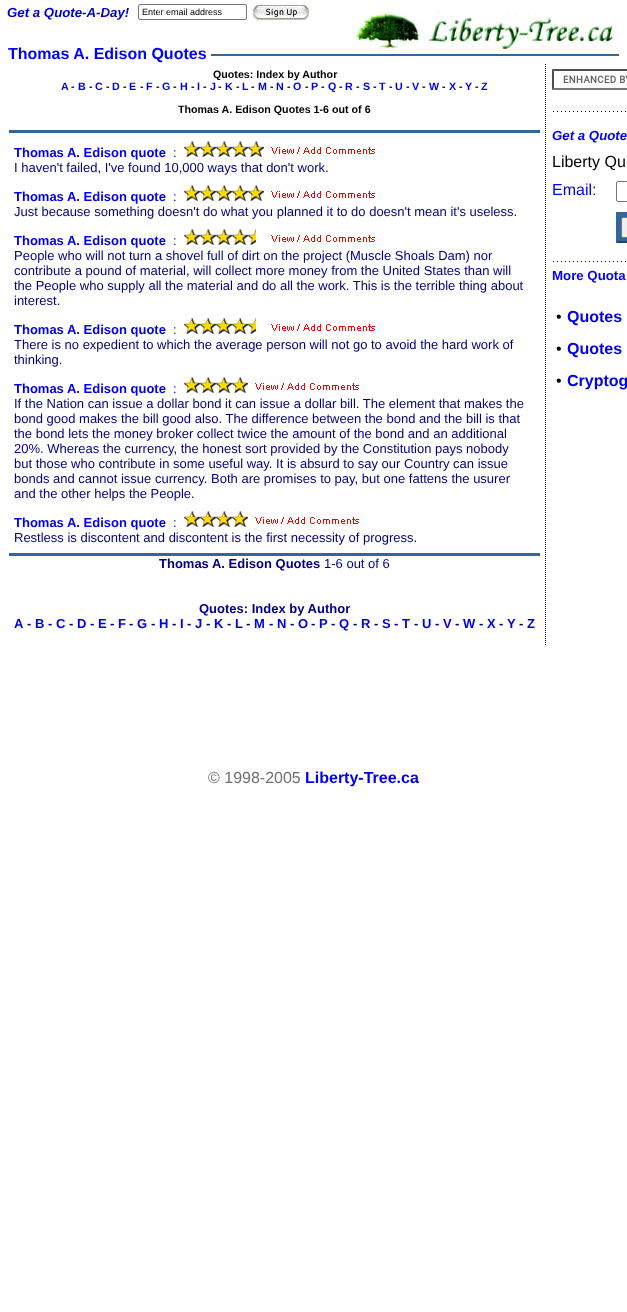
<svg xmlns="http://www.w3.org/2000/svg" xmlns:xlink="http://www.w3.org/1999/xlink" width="627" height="1312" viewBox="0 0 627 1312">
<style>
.cls-1{font:italic bold 13.25px Liberation Sans;fill:#0000cc}
.cls-2{font:9px Liberation Sans;fill:#000000}
.cls-3{font:bold 10.7px Liberation Sans;fill:#000000}
.cls-4{font:bold 10.7px Liberation Sans;fill:#0000ee}
.cls-5{font:bold 13px Liberation Sans;fill:#0000ee}
.cls-6{font:13px Liberation Sans;fill:#000080}
.cls-7{font:bold 13px Liberation Sans;fill:#000080}
.cls-8{font:italic bold 13.25px Liberation Sans;fill:#0000ff}
.cls-9{font:16px Liberation Sans;fill:#000000}
.cls-10{font:16px Liberation Sans;fill:#0000ff}
.cls-11{font:bold 13.25px Liberation Sans;fill:#0000ff}
.cls-12{font:bold 16px Liberation Sans;fill:#0000ee}
.cls-13{font:bold 16px Liberation Sans;fill:#0000ff}
.cls-14{font:16px Liberation Sans;fill:#6f6f6f}
</style>
<rect width="100%" height="100%" fill="#ffffff"/>
<rect fill="none" stroke="#767676" x="138.5" y="4.5" width="108" height="15" rx="1.5"/>
<image xlink:href="image0.png" x="252" y="3" width="60" height="18"/>
<rect fill="#336699" x="9" y="130" width="531" height="3"/>
<rect fill="#336699" x="9" y="553" width="531" height="3"/>
<image xlink:href="image1.png" x="184" y="141" width="80" height="16"/>
<image xlink:href="image2.png" x="271" y="147" width="104" height="7"/>
<image xlink:href="image1.png" x="184" y="185" width="80" height="16"/>
<image xlink:href="image2.png" x="271" y="191" width="104" height="7"/>
<image xlink:href="image3.png" x="184" y="229" width="64" height="16"/>
<image xlink:href="image4.png" x="248" y="229" width="8" height="16"/>
<image xlink:href="image2.png" x="271" y="235" width="104" height="7"/>
<image xlink:href="image3.png" x="184" y="318" width="64" height="16"/>
<image xlink:href="image4.png" x="248" y="318" width="8" height="16"/>
<image xlink:href="image2.png" x="271" y="324" width="104" height="7"/>
<image xlink:href="image3.png" x="184" y="377" width="64" height="16"/>
<image xlink:href="image2.png" x="255" y="383" width="104" height="7"/>
<image xlink:href="image3.png" x="184" y="511" width="64" height="16"/>
<image xlink:href="image2.png" x="255" y="517" width="104" height="7"/>
<path fill="none" stroke="#000000" stroke-dasharray="1 1" d="M545.5 64V646"/>
<image xlink:href="image5.png" x="563" y="75" width="64" height="8"/>
<path fill="#4f4f4f" d="M552 69H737L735 71H554Z"/>
<path fill="#767676" d="M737 90H552L554 88H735Z"/>
<path fill="#4f4f4f" d="M552 90V69L554 71V88Z"/>
<image xlink:href="image6.png" x="553" y="111" width="73" height="1"/>
<rect fill="none" stroke="#767676" x="616.5" y="181.5" width="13" height="20" rx="1.5"/>
<rect fill="#336699" x="616" y="212" width="11" height="31"/>
<path fill="#224466" d="M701 243H616L618 241H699Z"/>
<path fill="#336699" d="M616 243V212L618 214V241Z"/>
<rect fill="#efefef" stroke="#767676" x="621.5" y="217.5" width="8" height="20" rx="1.5"/>
<image xlink:href="image6.png" x="553" y="261" width="73" height="1"/>
<rect fill="#336699" x="211" y="54" width="408" height="2"/>
<image xlink:href="image7.png" x="355" y="12" width="260" height="38"/>
<text class="cls-1" x="7" y="17">Get a Quote-A-Day!</text>
<text class="cls-2" x="142" y="15">Enter email address</text>
<text class="cls-3" x="213" y="78">Quotes: Index by Author</text>
<text class="cls-4" x="61" y="90">A</text>
<text class="cls-3" x="71" y="90">-</text>
<text class="cls-4" x="78" y="90">B</text>
<text class="cls-3" x="89" y="90">-</text>
<text class="cls-4" x="95" y="90">C</text>
<text class="cls-3" x="106" y="90">-</text>
<text class="cls-4" x="112" y="90">D</text>
<text class="cls-3" x="123" y="90">-</text>
<text class="cls-4" x="129" y="90">E</text>
<text class="cls-3" x="140" y="90">-</text>
<text class="cls-4" x="146" y="90">F</text>
<text class="cls-3" x="156" y="90">-</text>
<text class="cls-4" x="162" y="90">G</text>
<text class="cls-3" x="173" y="90">-</text>
<text class="cls-4" x="180" y="90">H</text>
<text class="cls-3" x="191" y="90">-</text>
<text class="cls-4" x="197" y="90">I</text>
<text class="cls-3" x="203" y="90">-</text>
<text class="cls-4" x="210" y="90">J</text>
<text class="cls-3" x="218" y="90">-</text>
<text class="cls-4" x="225" y="90">K</text>
<text class="cls-3" x="236" y="90">-</text>
<text class="cls-4" x="242" y="90">L</text>
<text class="cls-3" x="251" y="90">-</text>
<text class="cls-4" x="258" y="90">M</text>
<text class="cls-3" x="270" y="90">-</text>
<text class="cls-4" x="276" y="90">N</text>
<text class="cls-3" x="287" y="90">-</text>
<text class="cls-4" x="293" y="90">O</text>
<text class="cls-3" x="305" y="90">-</text>
<text class="cls-4" x="311" y="90">P</text>
<text class="cls-3" x="321" y="90">-</text>
<text class="cls-4" x="328" y="90">Q</text>
<text class="cls-3" x="339" y="90">-</text>
<text class="cls-4" x="345" y="90">R</text>
<text class="cls-3" x="356" y="90">-</text>
<text class="cls-4" x="363" y="90">S</text>
<text class="cls-3" x="373" y="90">-</text>
<text class="cls-4" x="379" y="90">T</text>
<text class="cls-3" x="389" y="90">-</text>
<text class="cls-4" x="395" y="90">U</text>
<text class="cls-3" x="406" y="90">-</text>
<text class="cls-4" x="412" y="90">V</text>
<text class="cls-3" x="422" y="90">-</text>
<text class="cls-4" x="429" y="90">W</text>
<text class="cls-3" x="442" y="90">-</text>
<text class="cls-4" x="449" y="90">X</text>
<text class="cls-3" x="459" y="90">-</text>
<text class="cls-4" x="465" y="90">Y</text>
<text class="cls-3" x="475" y="90">-</text>
<text class="cls-4" x="481" y="90">Z</text>
<text class="cls-3" x="178" y="113">Thomas A. Edison Quotes 1-6 out of 6</text>
<text class="cls-5" x="14" y="157">Thomas A. Edison quote</text>
<text class="cls-6" x="173" y="157">:</text>
<text class="cls-6" x="14" y="172">I haven't failed, I've found 10,000 ways that don't work.</text>
<text class="cls-5" x="14" y="201">Thomas A. Edison quote</text>
<text class="cls-6" x="173" y="201">:</text>
<text class="cls-6" x="14" y="216">Just because something doesn't do what you planned it to do doesn't mean it's useless.</text>
<text class="cls-5" x="14" y="245">Thomas A. Edison quote</text>
<text class="cls-6" x="173" y="245">:</text>
<text class="cls-6"><tspan x="14" y="260">People who will not turn a shovel full of dirt on the project (Muscle Shoals Dam) nor</tspan><tspan x="14" y="275">contribute a pound of material, will collect more money from the United States than will</tspan><tspan x="14" y="290">the People who supply all the material and do all the work. This is the terrible thing about</tspan><tspan x="14" y="305">interest.</tspan></text>
<text class="cls-5" x="14" y="334">Thomas A. Edison quote</text>
<text class="cls-6" x="173" y="334">:</text>
<text class="cls-6"><tspan x="14" y="349">There is no expedient to which the average person will not go to avoid the hard work of</tspan><tspan x="14" y="364">thinking.</tspan></text>
<text class="cls-5" x="14" y="393">Thomas A. Edison quote</text>
<text class="cls-6" x="173" y="393">:</text>
<text class="cls-6"><tspan x="14" y="408">If the Nation can issue a dollar bond it can issue a dollar bill. The element that makes the</tspan><tspan x="14" y="423">bond good makes the bill good also. The difference between the bond and the bill is that</tspan><tspan x="14" y="438">the bond lets the money broker collect twice the amount of the bond and an additional</tspan><tspan x="14" y="453">20%. Whereas the currency, the honest sort provided by the Constitution pays nobody</tspan><tspan x="14" y="468">but those who contribute in some useful way. It is absurd to say our Country can issue</tspan><tspan x="14" y="483">bonds and cannot issue currency. Both are promises to pay, but one fattens the usurer</tspan><tspan x="14" y="498">and the other helps the People.</tspan></text>
<text class="cls-5" x="14" y="527">Thomas A. Edison quote</text>
<text class="cls-6" x="173" y="527">:</text>
<text class="cls-6" x="14" y="542">Restless is discontent and discontent is the first necessity of progress.</text>
<text class="cls-7" x="159" y="568">Thomas A. Edison Quotes</text>
<text class="cls-6" x="324" y="568">1-6 out of 6</text>
<text class="cls-7" x="199" y="613">Quotes: Index by Author</text>
<text class="cls-5" x="14" y="628">A</text>
<text class="cls-7" x="27" y="628">-</text>
<text class="cls-5" x="35" y="628">B</text>
<text class="cls-7" x="48" y="628">-</text>
<text class="cls-5" x="56" y="628">C</text>
<text class="cls-7" x="69" y="628">-</text>
<text class="cls-5" x="77" y="628">D</text>
<text class="cls-7" x="90" y="628">-</text>
<text class="cls-5" x="98" y="628">E</text>
<text class="cls-7" x="110" y="628">-</text>
<text class="cls-5" x="118" y="628">F</text>
<text class="cls-7" x="129" y="628">-</text>
<text class="cls-5" x="137" y="628">G</text>
<text class="cls-7" x="151" y="628">-</text>
<text class="cls-5" x="159" y="628">H</text>
<text class="cls-7" x="172" y="628">-</text>
<text class="cls-5" x="180" y="628">I</text>
<text class="cls-7" x="187" y="628">-</text>
<text class="cls-5" x="195" y="628">J</text>
<text class="cls-7" x="206" y="628">-</text>
<text class="cls-5" x="214" y="628">K</text>
<text class="cls-7" x="227" y="628">-</text>
<text class="cls-5" x="235" y="628">L</text>
<text class="cls-7" x="246" y="628">-</text>
<text class="cls-5" x="254" y="628">M</text>
<text class="cls-7" x="269" y="628">-</text>
<text class="cls-5" x="277" y="628">N</text>
<text class="cls-7" x="290" y="628">-</text>
<text class="cls-5" x="298" y="628">O</text>
<text class="cls-7" x="311" y="628">-</text>
<text class="cls-5" x="319" y="628">P</text>
<text class="cls-7" x="331" y="628">-</text>
<text class="cls-5" x="339" y="628">Q</text>
<text class="cls-7" x="353" y="628">-</text>
<text class="cls-5" x="361" y="628">R</text>
<text class="cls-7" x="374" y="628">-</text>
<text class="cls-5" x="382" y="628">S</text>
<text class="cls-7" x="394" y="628">-</text>
<text class="cls-5" x="402" y="628">T</text>
<text class="cls-7" x="414" y="628">-</text>
<text class="cls-5" x="422" y="628">U</text>
<text class="cls-7" x="435" y="628">-</text>
<text class="cls-5" x="443" y="628">V</text>
<text class="cls-7" x="455" y="628">-</text>
<text class="cls-5" x="463" y="628">W</text>
<text class="cls-7" x="479" y="628">-</text>
<text class="cls-5" x="487" y="628">X</text>
<text class="cls-7" x="499" y="628">-</text>
<text class="cls-5" x="507" y="628">Y</text>
<text class="cls-7" x="519" y="628">-</text>
<text class="cls-5" x="527" y="628">Z</text>
<text class="cls-8" x="552" y="140">Get a Quote</text>
<text class="cls-9" x="552" y="167">Liberty Qu</text>
<text class="cls-10" x="552" y="195">Email:</text>
<text class="cls-11" x="552" y="280">More Quota</text>
<text class="cls-9" x="556" y="322">•</text>
<text class="cls-12" x="567" y="322">Quotes</text>
<text class="cls-9" x="556" y="354">•</text>
<text class="cls-12" x="567" y="354">Quotes</text>
<text class="cls-9" x="556" y="386">•</text>
<text class="cls-12" x="567" y="386">Cryptog</text>
<text class="cls-13" x="8" y="59">Thomas A. Edison Quotes</text>
<text class="cls-14" x="208" y="783">© 1998-2005</text>
<text class="cls-12" x="305" y="783">Liberty-Tree.ca</text>
</svg>
